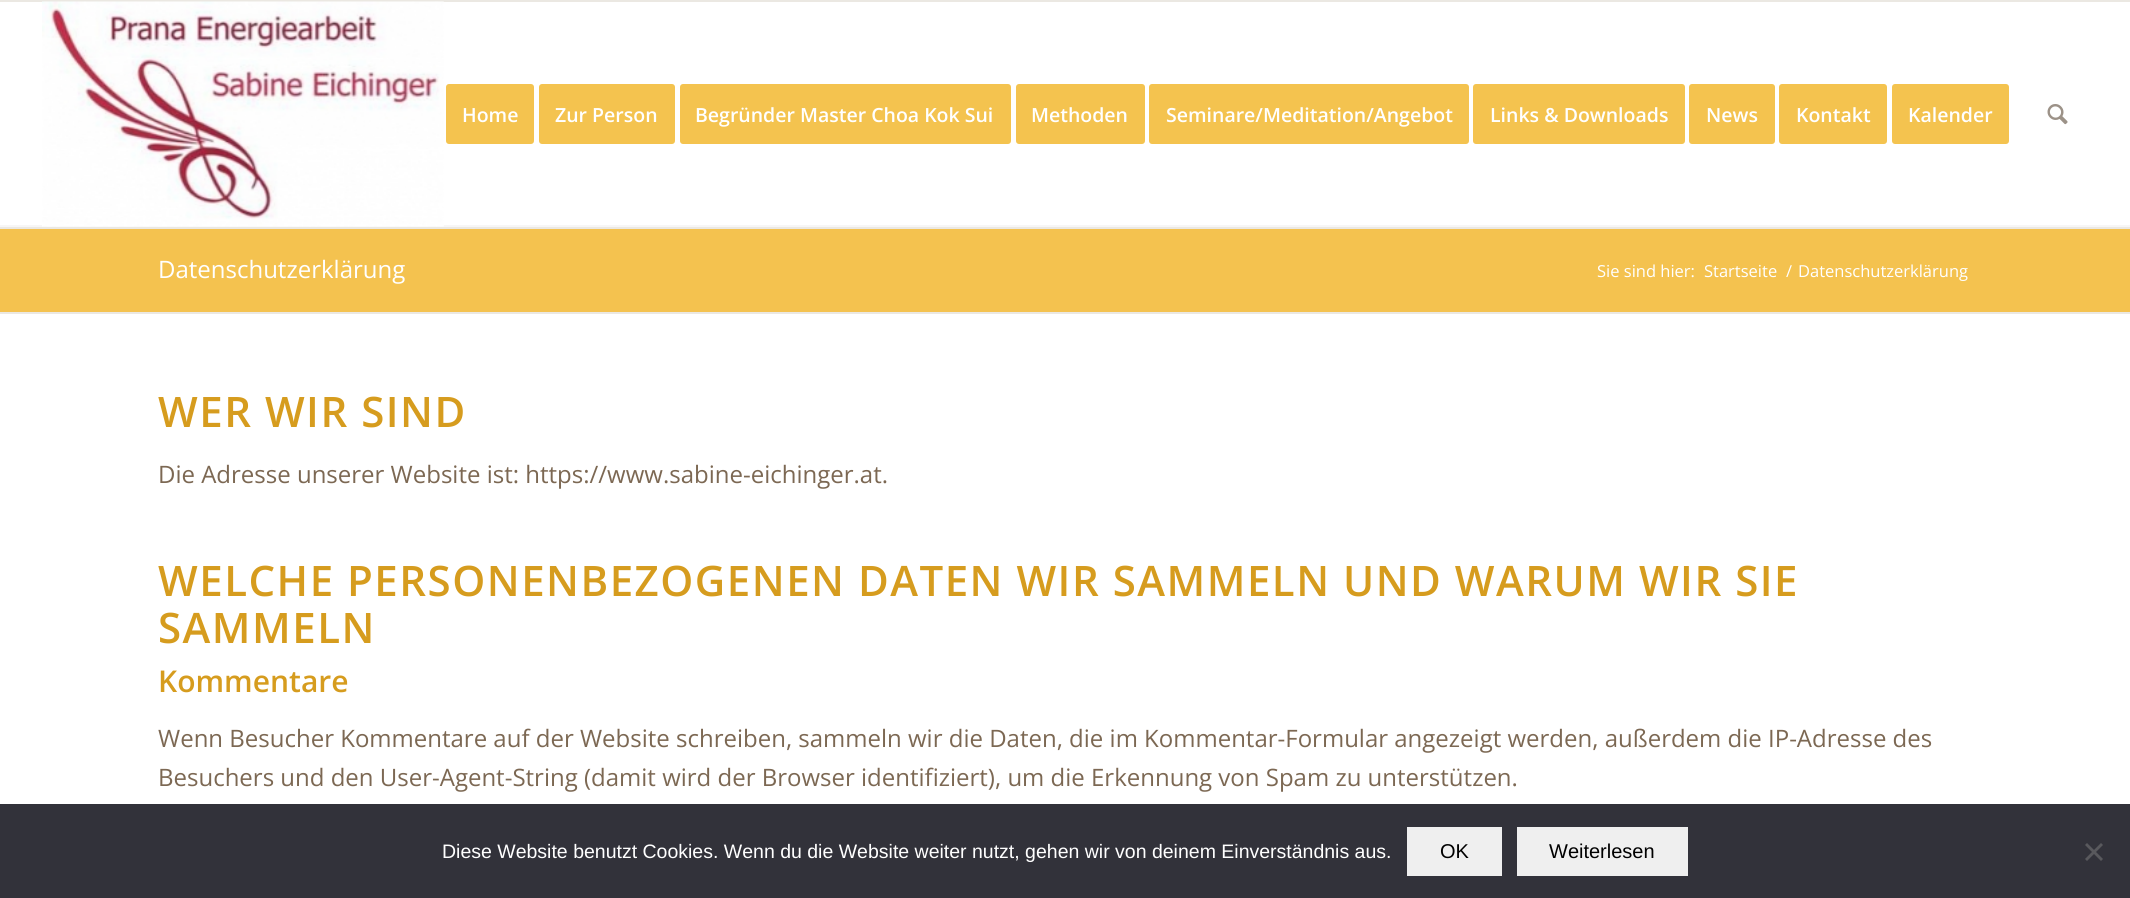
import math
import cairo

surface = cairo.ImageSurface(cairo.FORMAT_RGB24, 2130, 898)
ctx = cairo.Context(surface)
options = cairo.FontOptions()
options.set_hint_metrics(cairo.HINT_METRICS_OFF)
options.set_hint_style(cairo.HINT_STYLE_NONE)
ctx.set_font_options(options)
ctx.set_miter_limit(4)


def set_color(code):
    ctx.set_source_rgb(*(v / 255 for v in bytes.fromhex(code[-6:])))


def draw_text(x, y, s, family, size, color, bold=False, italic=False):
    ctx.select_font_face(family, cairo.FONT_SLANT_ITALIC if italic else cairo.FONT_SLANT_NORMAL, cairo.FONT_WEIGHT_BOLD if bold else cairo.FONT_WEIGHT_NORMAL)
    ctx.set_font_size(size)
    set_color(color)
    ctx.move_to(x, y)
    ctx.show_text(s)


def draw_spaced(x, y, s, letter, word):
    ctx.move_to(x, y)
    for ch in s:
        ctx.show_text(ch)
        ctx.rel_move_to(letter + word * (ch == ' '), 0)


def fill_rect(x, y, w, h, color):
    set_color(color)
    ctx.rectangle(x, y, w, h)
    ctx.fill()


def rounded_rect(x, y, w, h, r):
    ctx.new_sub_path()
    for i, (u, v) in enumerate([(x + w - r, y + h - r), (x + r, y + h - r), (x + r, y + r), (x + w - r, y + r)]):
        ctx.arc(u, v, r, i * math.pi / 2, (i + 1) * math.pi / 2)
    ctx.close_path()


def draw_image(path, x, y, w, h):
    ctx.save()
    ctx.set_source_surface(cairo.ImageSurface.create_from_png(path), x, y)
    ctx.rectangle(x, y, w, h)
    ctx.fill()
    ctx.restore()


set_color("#ffffff")
ctx.paint()
fill_rect(0, 0, 2130, 2, "#ebe8e2")
fill_rect(0, 227, 2130, 2, "#ebe8e2")
fill_rect(0, 225, 2130, 2, "#f7f6f6")
draw_image("assets/img1.png", 42, 1, 402, 226)
set_color("#f4c34f")
rounded_rect(447.5, 85.5, 85, 57, 1.5)
ctx.fill_preserve()
ctx.set_line_width(3)
ctx.stroke()
draw_text(462, 122, "Home", "Open Sans SemiBold", 19.5, "#ffffff")
set_color("#f4c34f")
rounded_rect(540.5, 85.5, 133, 57, 1.5)
ctx.fill_preserve()
ctx.stroke()
draw_text(555, 122, "Zur Person", "Open Sans SemiBold", 19.5, "#ffffff")
set_color("#f4c34f")
rounded_rect(681.5, 85.5, 328, 57, 1.5)
ctx.fill_preserve()
ctx.stroke()
draw_text(695, 122, "Begründer Master Choa Kok Sui", "Open Sans SemiBold", 19.5, "#ffffff")
set_color("#f4c34f")
rounded_rect(1017.5, 85.5, 126, 57, 1.5)
ctx.fill_preserve()
ctx.stroke()
draw_text(1031, 122, "Methoden", "Open Sans SemiBold", 19.5, "#ffffff")
set_color("#f4c34f")
rounded_rect(1150.5, 85.5, 317, 57, 1.5)
ctx.fill_preserve()
ctx.stroke()
draw_text(1166, 122, "Seminare/Meditation/Angebot", "Open Sans SemiBold", 19.5, "#ffffff")
set_color("#f4c34f")
rounded_rect(1474.5, 85.5, 209, 57, 1.5)
ctx.fill_preserve()
ctx.stroke()
draw_text(1490, 122, "Links & Downloads", "Open Sans SemiBold", 19.5, "#ffffff")
set_color("#f4c34f")
rounded_rect(1690.5, 85.5, 83, 57, 1.5)
ctx.fill_preserve()
ctx.stroke()
draw_text(1706, 122, "News", "Open Sans SemiBold", 19.5, "#ffffff")
set_color("#f4c34f")
rounded_rect(1780.5, 85.5, 105, 57, 1.5)
ctx.fill_preserve()
ctx.stroke()
draw_text(1796, 122, "Kontakt", "Open Sans SemiBold", 19.5, "#ffffff")
set_color("#f4c34f")
rounded_rect(1893.5, 85.5, 114, 57, 1.5)
ctx.fill_preserve()
ctx.stroke()
draw_text(1908, 122, "Kalender", "Open Sans SemiBold", 19.5, "#ffffff")
draw_image("assets/img2.png", 2047, 104, 21, 21)
fill_rect(0, 229, 2130, 83, "#f4c24f")
draw_text(158, 278, "Datenschutzerklärung", "Open Sans", 24, "#ffffff")
draw_text(1597, 277, "Sie sind hier:", "Open Sans", 16.5, "#ffffff")
draw_text(1704, 277, "Startseite", "Open Sans", 16.5, "#ffffff")
draw_text(1786, 277, "/", "Open Sans", 16.5, "#ffffff")
draw_text(1798, 277, "Datenschutzerklärung", "Open Sans", 16.5, "#ffffff")
fill_rect(0, 312, 2130, 2, "#ebe8e2")
ctx.select_font_face("Open Sans SemiBold")
ctx.set_font_size(42)
set_color("#d69c1e")
draw_spaced(158, 427, "WER WIR SIND", 1.5, 0)
draw_text(158, 483, "Die Adresse unserer Website ist: https://www.sabine-eichinger.at.", "Open Sans", 24, "#7c6853")
ctx.select_font_face("Open Sans SemiBold")
ctx.set_font_size(42)
set_color("#d69c1e")
draw_spaced(158, 596, "WELCHE PERSONENBEZOGENEN DATEN WIR SAMMELN UND WARUM WIR SIE", 1.5, 0)
draw_spaced(158, 643, "SAMMELN", 1.5, 0)
draw_text(158, 692, "Kommentare", "Open Sans SemiBold", 30, "#d69c1e")
draw_text(158, 747, "Wenn Besucher Kommentare auf der Website schreiben, sammeln wir die Daten, die im Kommentar-Formular angezeigt werden, außerdem die IP-Adresse des", "Open Sans", 24, "#7c6853")
draw_text(158, 786, "Besuchers und den User-Agent-String (damit wird der Browser identifiziert), um die Erkennung von Spam zu unterstützen.", "Open Sans", 24, "#7c6853")
fill_rect(0, 804, 2130, 94, "#32323a")
draw_text(442, 858, "Diese Website benutzt Cookies. Wenn du die Website weiter nutzt, gehen wir von deinem Einverständnis aus.", "Liberation Sans", 19.5, "#ffffff")
fill_rect(1407, 827, 95, 49, "#efefef")
draw_text(1440, 858, "OK", "Liberation Sans", 20, "#000000")
fill_rect(1517, 827, 171, 49, "#efefef")
draw_text(1549, 858, "Weiterlesen", "Liberation Sans", 20, "#000000")
set_color("#59595d")
ctx.new_path()
ctx.move_to(2101, 843)
ctx.line_to(2103, 845)
ctx.line_to(2087, 861)
ctx.line_to(2085, 859)
ctx.close_path()
ctx.fill()
ctx.new_path()
ctx.move_to(2085, 845)
ctx.line_to(2087, 843)
ctx.line_to(2103, 859)
ctx.line_to(2101, 861)
ctx.close_path()
ctx.fill()
surface.write_to_png("output.png")
